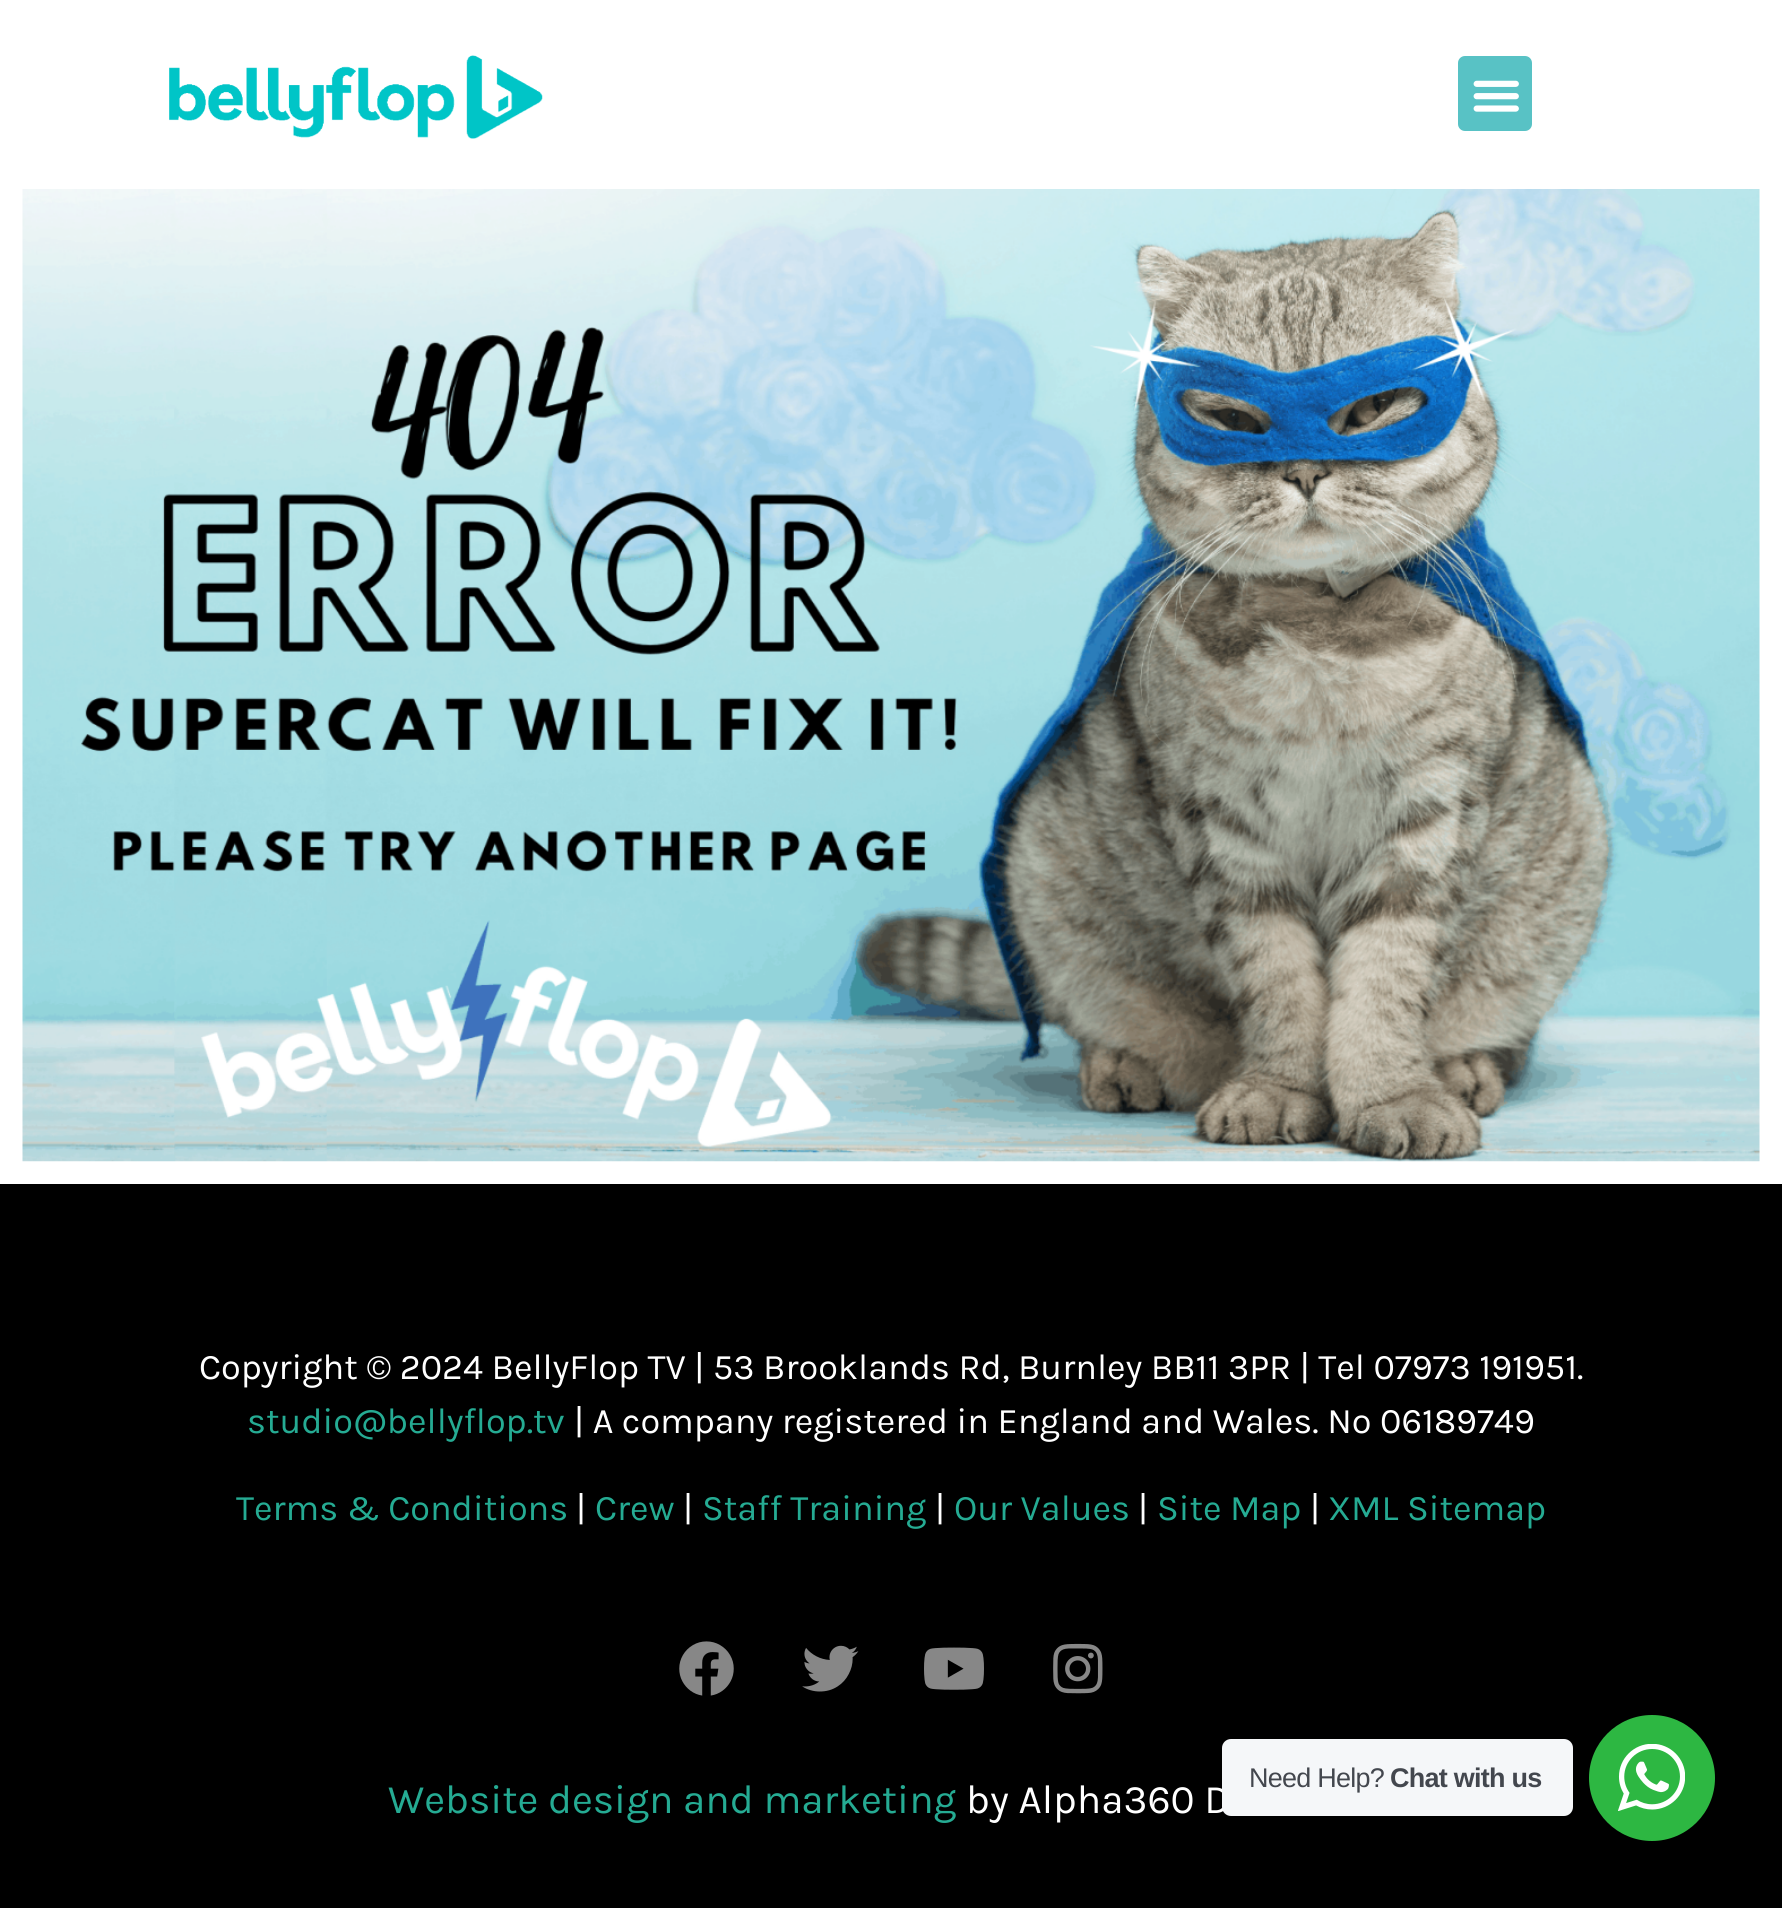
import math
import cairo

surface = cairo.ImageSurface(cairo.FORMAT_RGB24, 1782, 1908)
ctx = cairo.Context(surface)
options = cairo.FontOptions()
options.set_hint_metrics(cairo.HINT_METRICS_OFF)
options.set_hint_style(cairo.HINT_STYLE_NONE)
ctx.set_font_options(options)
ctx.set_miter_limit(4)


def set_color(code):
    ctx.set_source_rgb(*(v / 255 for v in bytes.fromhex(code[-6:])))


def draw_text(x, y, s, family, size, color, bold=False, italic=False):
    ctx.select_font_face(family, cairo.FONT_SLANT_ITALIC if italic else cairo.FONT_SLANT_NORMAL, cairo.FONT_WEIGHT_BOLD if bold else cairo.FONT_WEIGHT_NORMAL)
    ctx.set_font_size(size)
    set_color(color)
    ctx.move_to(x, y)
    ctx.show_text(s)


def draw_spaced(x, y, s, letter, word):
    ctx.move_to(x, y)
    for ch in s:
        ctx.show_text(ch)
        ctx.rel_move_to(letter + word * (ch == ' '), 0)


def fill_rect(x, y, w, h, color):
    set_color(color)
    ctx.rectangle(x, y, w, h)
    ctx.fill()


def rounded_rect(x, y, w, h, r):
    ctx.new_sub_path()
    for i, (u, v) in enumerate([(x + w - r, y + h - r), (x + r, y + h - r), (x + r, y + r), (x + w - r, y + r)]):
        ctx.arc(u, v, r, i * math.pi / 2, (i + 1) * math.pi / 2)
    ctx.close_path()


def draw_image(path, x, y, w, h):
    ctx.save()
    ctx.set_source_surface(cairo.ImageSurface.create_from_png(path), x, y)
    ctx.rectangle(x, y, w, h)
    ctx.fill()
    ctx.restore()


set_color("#ffffff")
ctx.paint()
draw_image("assets/img1.png", 169, 55, 374, 84)
set_color("#58c2c5")
rounded_rect(1458, 56, 74, 75, 7)
ctx.fill()
draw_image("assets/img2.png", 1473, 80, 46, 32)
draw_image("assets/img3.png", 22, 189, 1738, 973)
fill_rect(0, 1184, 1782, 724, "#000000")
draw_text(199, 1379, "Copyright © 2024 BellyFlop TV | 53 Brooklands Rd, Burnley BB11 3PR | Tel 07973 191951.", "Karla", 36, "#ffffff")
draw_text(247, 1433, "studio@bellyflop.tv", "Karla", 36, "#25ab93")
draw_text(574, 1433, "| A company registered in England and Wales. No 06189749", "Karla", 36, "#ffffff")
draw_text(236, 1520, "Terms & Conditions", "Karla", 36, "#25ab93")
draw_text(576, 1520, "|", "Karla", 36, "#ffffff")
draw_text(595, 1520, "Crew", "Karla", 36, "#25ab93")
draw_text(683, 1520, "|", "Karla", 36, "#ffffff")
draw_text(702, 1520, "Staff Training", "Karla", 36, "#25ab93")
draw_text(935, 1520, "|", "Karla", 36, "#ffffff")
draw_text(954, 1520, "Our Values", "Karla", 36, "#25ab93")
draw_text(1138, 1520, "|", "Karla", 36, "#ffffff")
draw_text(1157, 1520, "Site Map", "Karla", 36, "#25ab93")
draw_text(1310, 1520, "|", "Karla", 36, "#ffffff")
draw_text(1328, 1520, "XML Sitemap", "Karla", 36, "#25ab93")
draw_image("assets/img4.png", 679, 1641, 55, 55)
draw_image("assets/img5.png", 802, 1645, 57, 47)
draw_image("assets/img6.png", 924, 1647, 60, 43)
draw_image("assets/img7.png", 1053, 1643, 50, 51)
draw_text(388, 1813, "Website design and marketing", "Karla", 40.5, "#25ab93")
draw_text(966, 1813, "by Alpha360 D", "Karla", 40.5, "#ffffff")
set_color("#f5f7f9")
rounded_rect(1222, 1739, 351, 77, 9)
ctx.fill()
ctx.select_font_face("Liberation Sans")
ctx.set_font_size(27)
set_color("#43474e")
draw_spaced(1249, 1787, "Need Help?", -0.75, 0)
ctx.select_font_face("Liberation Sans", cairo.FONT_SLANT_NORMAL, cairo.FONT_WEIGHT_BOLD)
draw_spaced(1390, 1787, "Chat with us", -0.75, 0)
set_color("#2db742")
ctx.new_path()
ctx.arc(1652, 1778, 63, 0, 2 * math.pi)
ctx.fill()
draw_image("assets/img8.png", 1618, 1744, 67, 67)
surface.write_to_png("output.png")
